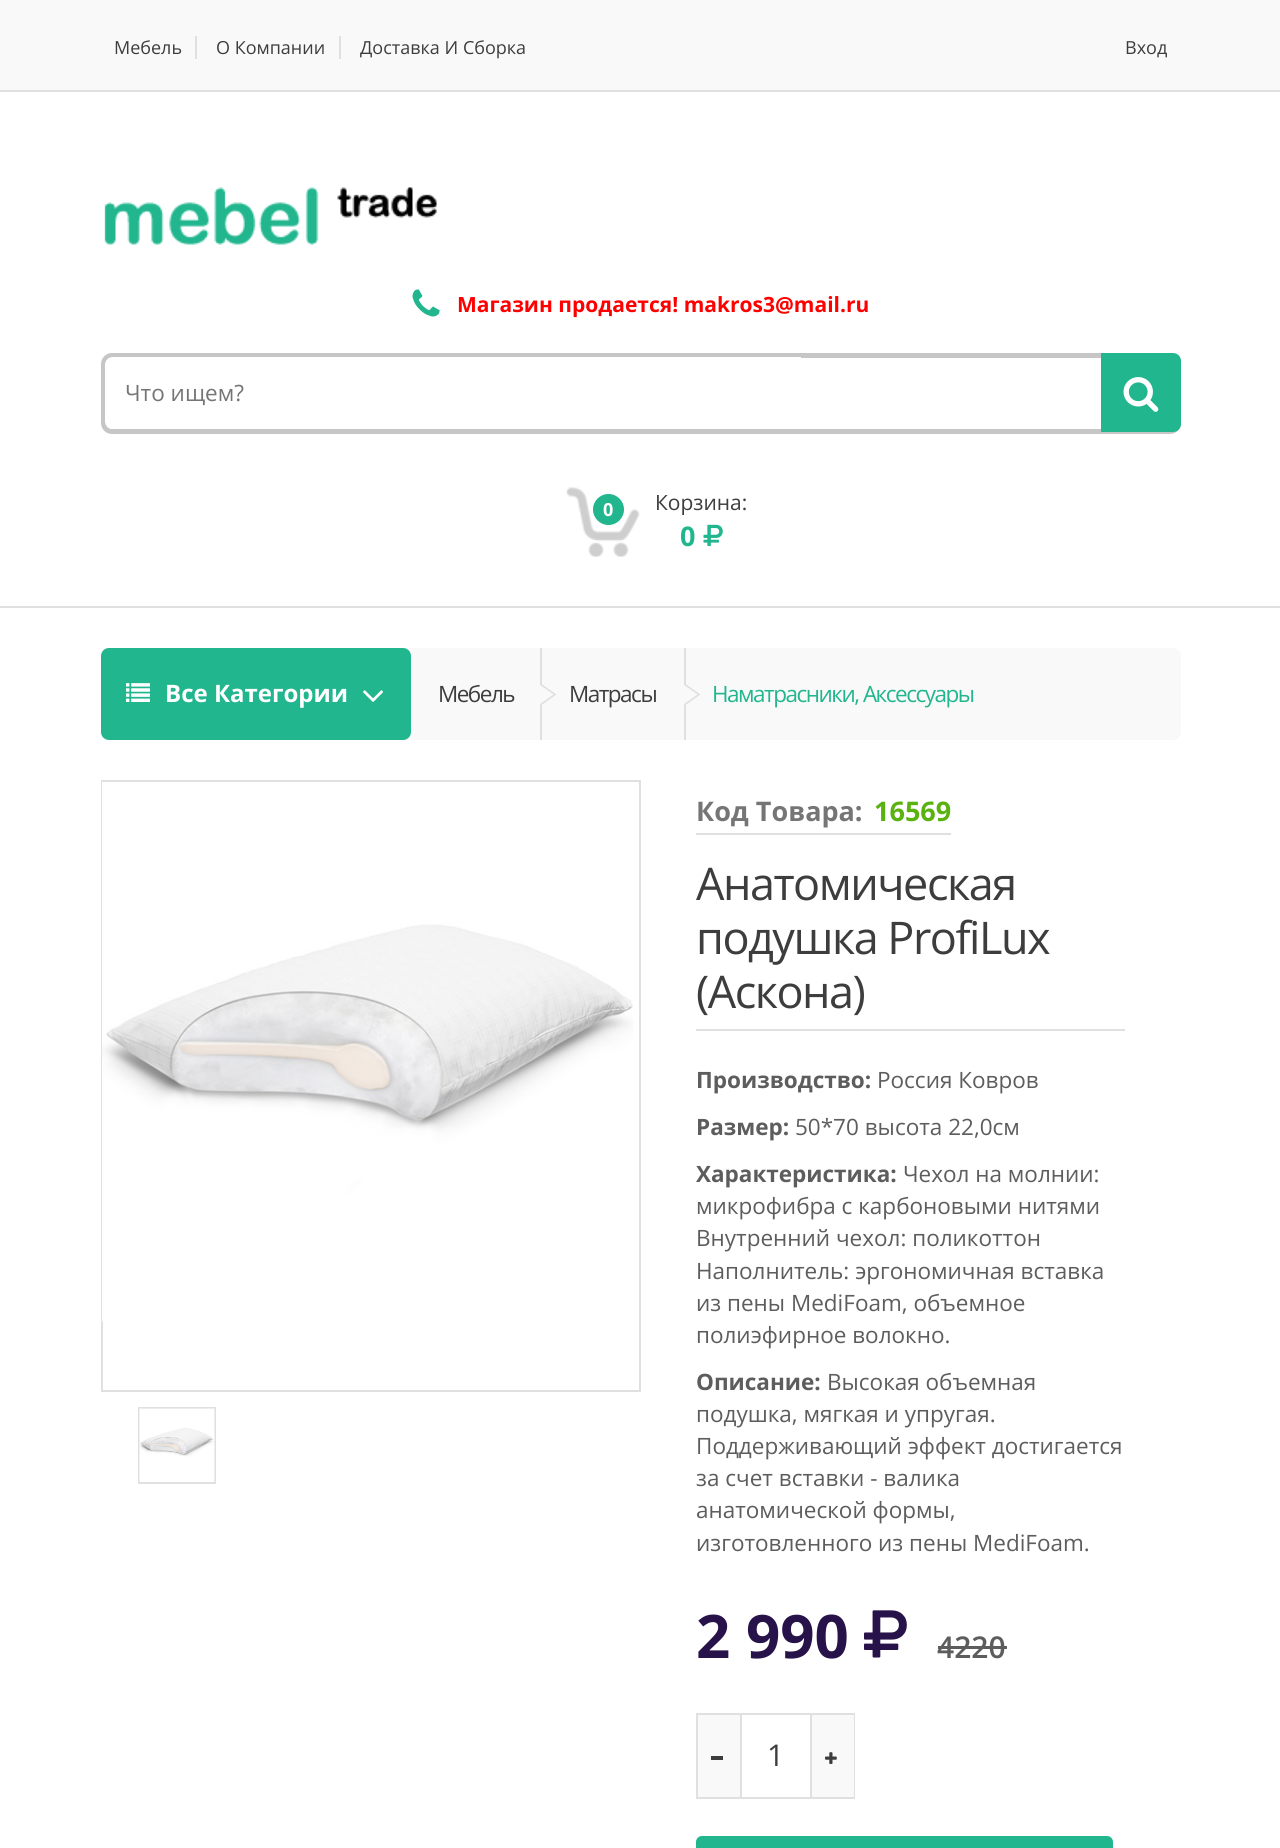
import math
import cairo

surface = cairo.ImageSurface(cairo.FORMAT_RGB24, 1280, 1848)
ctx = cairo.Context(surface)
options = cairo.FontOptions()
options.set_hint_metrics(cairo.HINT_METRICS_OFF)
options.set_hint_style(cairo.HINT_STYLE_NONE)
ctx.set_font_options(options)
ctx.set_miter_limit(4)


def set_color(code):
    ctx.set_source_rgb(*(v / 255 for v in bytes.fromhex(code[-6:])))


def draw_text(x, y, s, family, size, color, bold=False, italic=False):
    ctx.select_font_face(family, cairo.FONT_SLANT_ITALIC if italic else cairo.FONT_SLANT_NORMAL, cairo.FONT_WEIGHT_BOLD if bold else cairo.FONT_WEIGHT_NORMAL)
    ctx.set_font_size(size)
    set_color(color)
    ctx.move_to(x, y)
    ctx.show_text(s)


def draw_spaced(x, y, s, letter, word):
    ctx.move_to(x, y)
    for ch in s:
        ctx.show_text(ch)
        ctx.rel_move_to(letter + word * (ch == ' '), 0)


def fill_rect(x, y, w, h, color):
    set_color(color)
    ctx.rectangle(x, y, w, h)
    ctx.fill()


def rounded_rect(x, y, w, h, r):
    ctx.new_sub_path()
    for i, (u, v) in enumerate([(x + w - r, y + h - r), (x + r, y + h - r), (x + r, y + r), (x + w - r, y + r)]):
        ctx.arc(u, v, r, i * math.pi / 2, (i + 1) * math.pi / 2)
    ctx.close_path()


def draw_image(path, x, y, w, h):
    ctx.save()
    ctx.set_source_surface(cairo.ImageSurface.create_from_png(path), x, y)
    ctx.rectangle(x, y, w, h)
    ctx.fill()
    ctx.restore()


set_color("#ffffff")
ctx.paint()
fill_rect(0, 0, 1280, 90, "#f9f9f9")
fill_rect(0, 90, 1280, 2, "#e0e0e0")
fill_rect(195, 36, 2, 23, "#e0e0e0")
draw_text(114, 54, "Мебель", "Open Sans", 18, "#3d3d3d")
fill_rect(339, 36, 2, 23, "#e0e0e0")
draw_text(216, 54, "О Компании", "Open Sans", 18, "#3d3d3d")
draw_text(360, 54, "Доставка И Сборка", "Open Sans", 18, "#3d3d3d")
draw_text(1125, 54, "Вход", "Open Sans", 18, "#3d3d3d")
fill_rect(0, 606, 1280, 2, "#e0e0e0")
draw_image("assets/img1.png", 104, 187, 333, 58)
draw_image("assets/img2.png", 412, 289, 28, 28)
draw_text(457, 312, "Магазин продается! makros3@mail.ru", "Open Sans", 21, "#ff0000", bold=True)
rounded_rect(103.5, 355.5, 1075, 76, 8.5)
set_color("#c6c6c6")
ctx.set_line_width(5)
ctx.stroke()
set_color("#ffffff")
ctx.new_path()
ctx.move_to(113, 357)
ctx.line_to(801, 357)
ctx.line_to(801, 429)
ctx.line_to(113, 429)
ctx.curve_to(108.5, 429, 105, 425.5, 105, 421)
ctx.line_to(105, 365)
ctx.curve_to(105, 360.5, 108.5, 357, 113, 357)
ctx.close_path()
ctx.fill()
draw_text(125, 401, "Что ищем?", "Open Sans", 22.5, "#757575")
set_color("#21b68e")
ctx.new_path()
ctx.move_to(1101, 353)
ctx.line_to(1173, 353)
ctx.curve_to(1177.5, 353, 1181, 356.5, 1181, 361)
ctx.line_to(1181, 424)
ctx.curve_to(1181, 428.5, 1177.5, 432, 1173, 432)
ctx.line_to(1101, 432)
ctx.close_path()
ctx.fill()
draw_image("assets/img3.png", 1123, 377, 36, 35)
draw_image("assets/img4.png", 566, 487, 74, 70)
ctx.arc(608.5, 509.5, 15.5, 0, 2 * math.pi)
ctx.fill()
draw_text(603, 516, "0", "Open Sans", 18, "#ffffff", bold=True)
draw_text(655, 510, "Корзина:", "Open Sans", 21, "#3d3d3d")
draw_text(680, 546, "0", "Open Sans", 27, "#21b68e", bold=True)
draw_image("assets/img5.png", 703, 524, 20, 22)
set_color("#f9f9f9")
rounded_rect(101, 648, 1080, 92, 8)
ctx.fill()
set_color("#21b68e")
rounded_rect(101, 648, 310, 92, 8)
ctx.fill()
draw_image("assets/img6.png", 126, 683, 24, 19)
draw_text(165, 702, "Все Категории", "Open Sans", 24, "#ffffff", bold=True)
draw_image("assets/img7.png", 363, 690, 20, 12)
fill_rect(540, 648, 2, 92, "#e0e0e0")
ctx.select_font_face("Open Sans")
ctx.set_font_size(22.5)
set_color("#3d3d3d")
draw_spaced(438, 702, "Мебель", -1.5, 0)
set_color("#e0e0e0")
ctx.new_path()
ctx.move_to(541.5, 705)
ctx.line_to(541.5, 684)
ctx.line_to(556.5, 694.5)
ctx.close_path()
ctx.fill()
set_color("#f9f9f9")
ctx.new_path()
ctx.move_to(538.5, 705)
ctx.line_to(538.5, 684)
ctx.line_to(553.5, 694.5)
ctx.close_path()
ctx.fill()
fill_rect(684, 648, 2, 92, "#e0e0e0")
ctx.new_path()
ctx.move_to(685.5, 705)
ctx.line_to(685.5, 684)
ctx.line_to(700.5, 694.5)
ctx.close_path()
ctx.fill()
set_color("#f9f9f9")
ctx.new_path()
ctx.move_to(682.5, 705)
ctx.line_to(682.5, 684)
ctx.line_to(697.5, 694.5)
ctx.close_path()
ctx.fill()
set_color("#3d3d3d")
draw_spaced(569, 702, "Матрасы", -1.5, 0)
set_color("#21b68e")
draw_spaced(712, 702, "Наматрасники, Аксессуары", -1.5, 0)
ctx.rectangle(102, 781, 538, 610)
set_color("#e0e0e0")
ctx.set_line_width(2)
ctx.stroke()
draw_image("assets/img8.png", 102, 782, 532, 540)
ctx.rectangle(139, 1408, 76, 75)
ctx.stroke()
draw_image("assets/img9.png", 139, 1408, 76, 74)
fill_rect(696, 833, 255, 2, "#e0e0e0")
draw_text(696, 821, "Код Товара:", "Open Sans", 27, "#757575", bold=True)
draw_text(874, 821, "16569", "Open Sans", 27, "#59b210", bold=True)
ctx.select_font_face("Open Sans")
ctx.set_font_size(45)
set_color("#3d3d3d")
draw_spaced(696, 900, "Анатомическая", -1.5, 0)
draw_spaced(696, 954, "подушка ProfiLux", -1.5, 0)
draw_spaced(696, 1008, "(Аскона)", -1.5, 0)
fill_rect(696, 1029, 429, 2, "#e0e0e0")
draw_text(696, 1088, "Производство:", "Open Sans", 22.5, "#5d5d5d", bold=True)
draw_text(877, 1088, "Россия Ковров", "Open Sans", 22.5, "#5d5d5d")
draw_text(696, 1135, "Размер:", "Open Sans", 22.5, "#5d5d5d", bold=True)
draw_text(795, 1135, "50*70 высота 22,0см", "Open Sans", 22.5, "#5d5d5d")
draw_text(696, 1182, "Характеристика:", "Open Sans", 22.5, "#5d5d5d", bold=True)
draw_text(903, 1182, "Чехол на молнии:", "Open Sans", 22.5, "#5d5d5d")
draw_text(696, 1214, "микрофибра с карбоновыми нитями", "Open Sans", 22.5, "#5d5d5d")
draw_text(696, 1246, "Внутренний чехол: поликоттон", "Open Sans", 22.5, "#5d5d5d")
draw_text(696, 1279, "Наполнитель: эргономичная вставка", "Open Sans", 22.5, "#5d5d5d")
draw_text(696, 1311, "из пены MediFoam, объемное", "Open Sans", 22.5, "#5d5d5d")
draw_text(696, 1343, "полиэфирное волокно.", "Open Sans", 22.5, "#5d5d5d")
draw_text(696, 1390, "Описание:", "Open Sans", 22.5, "#5d5d5d", bold=True)
draw_text(827, 1390, "Высокая объемная", "Open Sans", 22.5, "#5d5d5d")
draw_text(696, 1422, "подушка, мягкая и упругая.", "Open Sans", 22.5, "#5d5d5d")
draw_text(696, 1454, "Поддерживающий эффект достигается", "Open Sans", 22.5, "#5d5d5d")
draw_text(696, 1486, "за счет вставки - валика", "Open Sans", 22.5, "#5d5d5d")
draw_text(696, 1518, "анатомической формы,", "Open Sans", 22.5, "#5d5d5d")
draw_text(696, 1551, "изготовленного из пены MediFoam.", "Open Sans", 22.5, "#5d5d5d")
draw_text(696, 1658, "2 990", "Open Sans", 60, "#28124a", bold=True)
draw_image("assets/img10.png", 864, 1610, 43, 48)
draw_text(937, 1658, "4220", "Open Sans SemiBold", 30, "#5d5d5d")
fill_rect(938, 1646, 69, 3, "#5d5d5d")
ctx.rectangle(697, 1714, 157, 84)
set_color("#e0e0e0")
ctx.stroke()
fill_rect(698, 1715, 42, 82, "#f9f9f9")
fill_rect(740, 1715, 2, 82, "#e0e0e0")
fill_rect(711, 1756, 12, 4, "#3d3d3d")
draw_text(767, 1766, "1", "Open Sans", 30, "#3d3d3d")
fill_rect(812, 1715, 42, 82, "#f9f9f9")
fill_rect(810, 1715, 2, 82, "#e0e0e0")
draw_image("assets/img11.png", 825, 1752, 12, 12)
set_color("#21b68e")
rounded_rect(696, 1836, 417, 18, 6)
ctx.fill()
surface.write_to_png("output.png")
